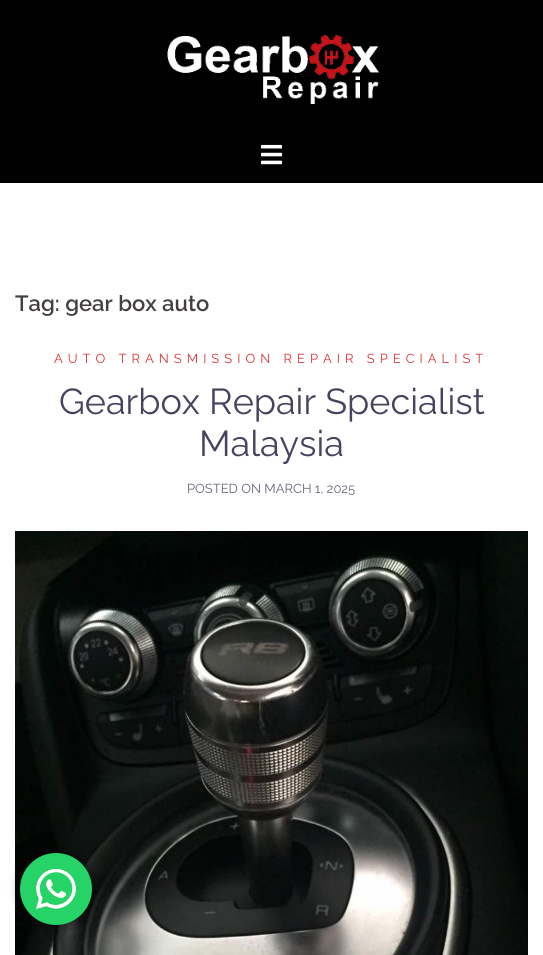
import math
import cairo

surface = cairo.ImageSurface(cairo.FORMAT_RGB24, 543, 955)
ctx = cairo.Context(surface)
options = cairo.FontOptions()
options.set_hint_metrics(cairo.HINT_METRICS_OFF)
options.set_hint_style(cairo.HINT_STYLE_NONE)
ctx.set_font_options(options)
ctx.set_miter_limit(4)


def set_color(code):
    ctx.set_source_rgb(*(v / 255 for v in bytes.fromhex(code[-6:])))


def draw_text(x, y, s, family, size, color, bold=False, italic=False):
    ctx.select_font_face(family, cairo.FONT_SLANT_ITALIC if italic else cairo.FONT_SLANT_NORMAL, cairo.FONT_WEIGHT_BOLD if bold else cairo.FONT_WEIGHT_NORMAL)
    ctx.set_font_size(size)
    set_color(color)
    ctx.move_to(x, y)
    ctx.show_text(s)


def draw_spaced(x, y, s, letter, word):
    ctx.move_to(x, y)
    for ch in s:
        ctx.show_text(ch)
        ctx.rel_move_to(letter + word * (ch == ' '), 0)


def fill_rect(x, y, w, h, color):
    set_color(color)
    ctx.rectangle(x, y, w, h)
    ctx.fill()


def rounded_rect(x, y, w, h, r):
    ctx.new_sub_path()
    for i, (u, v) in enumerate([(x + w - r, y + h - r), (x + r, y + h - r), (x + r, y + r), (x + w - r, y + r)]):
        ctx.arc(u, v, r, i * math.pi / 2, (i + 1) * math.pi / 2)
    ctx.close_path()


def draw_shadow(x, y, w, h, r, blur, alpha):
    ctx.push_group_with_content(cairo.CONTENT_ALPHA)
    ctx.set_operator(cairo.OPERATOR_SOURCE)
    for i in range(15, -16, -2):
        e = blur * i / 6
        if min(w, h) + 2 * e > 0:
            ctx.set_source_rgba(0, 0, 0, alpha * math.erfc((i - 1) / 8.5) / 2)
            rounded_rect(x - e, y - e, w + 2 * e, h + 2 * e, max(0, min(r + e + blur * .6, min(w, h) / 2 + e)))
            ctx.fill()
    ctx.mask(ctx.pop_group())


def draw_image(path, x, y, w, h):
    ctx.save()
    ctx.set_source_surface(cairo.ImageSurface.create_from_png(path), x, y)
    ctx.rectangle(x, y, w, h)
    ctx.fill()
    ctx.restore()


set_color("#ffffff")
ctx.paint()
fill_rect(0, 0, 543, 183, "#000000")
draw_image("assets/img1.png", 167, 35, 213, 69)
draw_image("assets/img2.png", 261, 144, 21, 21)
draw_text(15, 311, "Tag: gear box auto", "Raleway Thin", 22, "#443f3f")
ctx.select_font_face("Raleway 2 Thin")
ctx.set_font_size(13)
set_color("#dd3333")
draw_spaced(54, 363, "AUTO TRANSMISSION REPAIR SPECIALIST", 5, 0)
draw_text(59, 414, "Gearbox Repair Specialist", "Raleway 2 Thin", 36, "#47425d")
draw_text(199, 456, "Malaysia", "Raleway 2 Thin", 36, "#47425d")
draw_text(187, 493, "POSTED ON MARCH 1, 2025", "Raleway 2 Thin", 13, "#68647a")
draw_image("assets/img3.png", 15, 531, 513, 424)
set_color("#000000")
draw_shadow(20, 853, 72, 72, 36, 5.5, 0.5)
set_color("#25d366")
ctx.arc(56, 889, 36, 0, 2 * math.pi)
ctx.fill()
draw_image("assets/img4.png", 36, 869, 40, 40)
surface.write_to_png("output.png")
